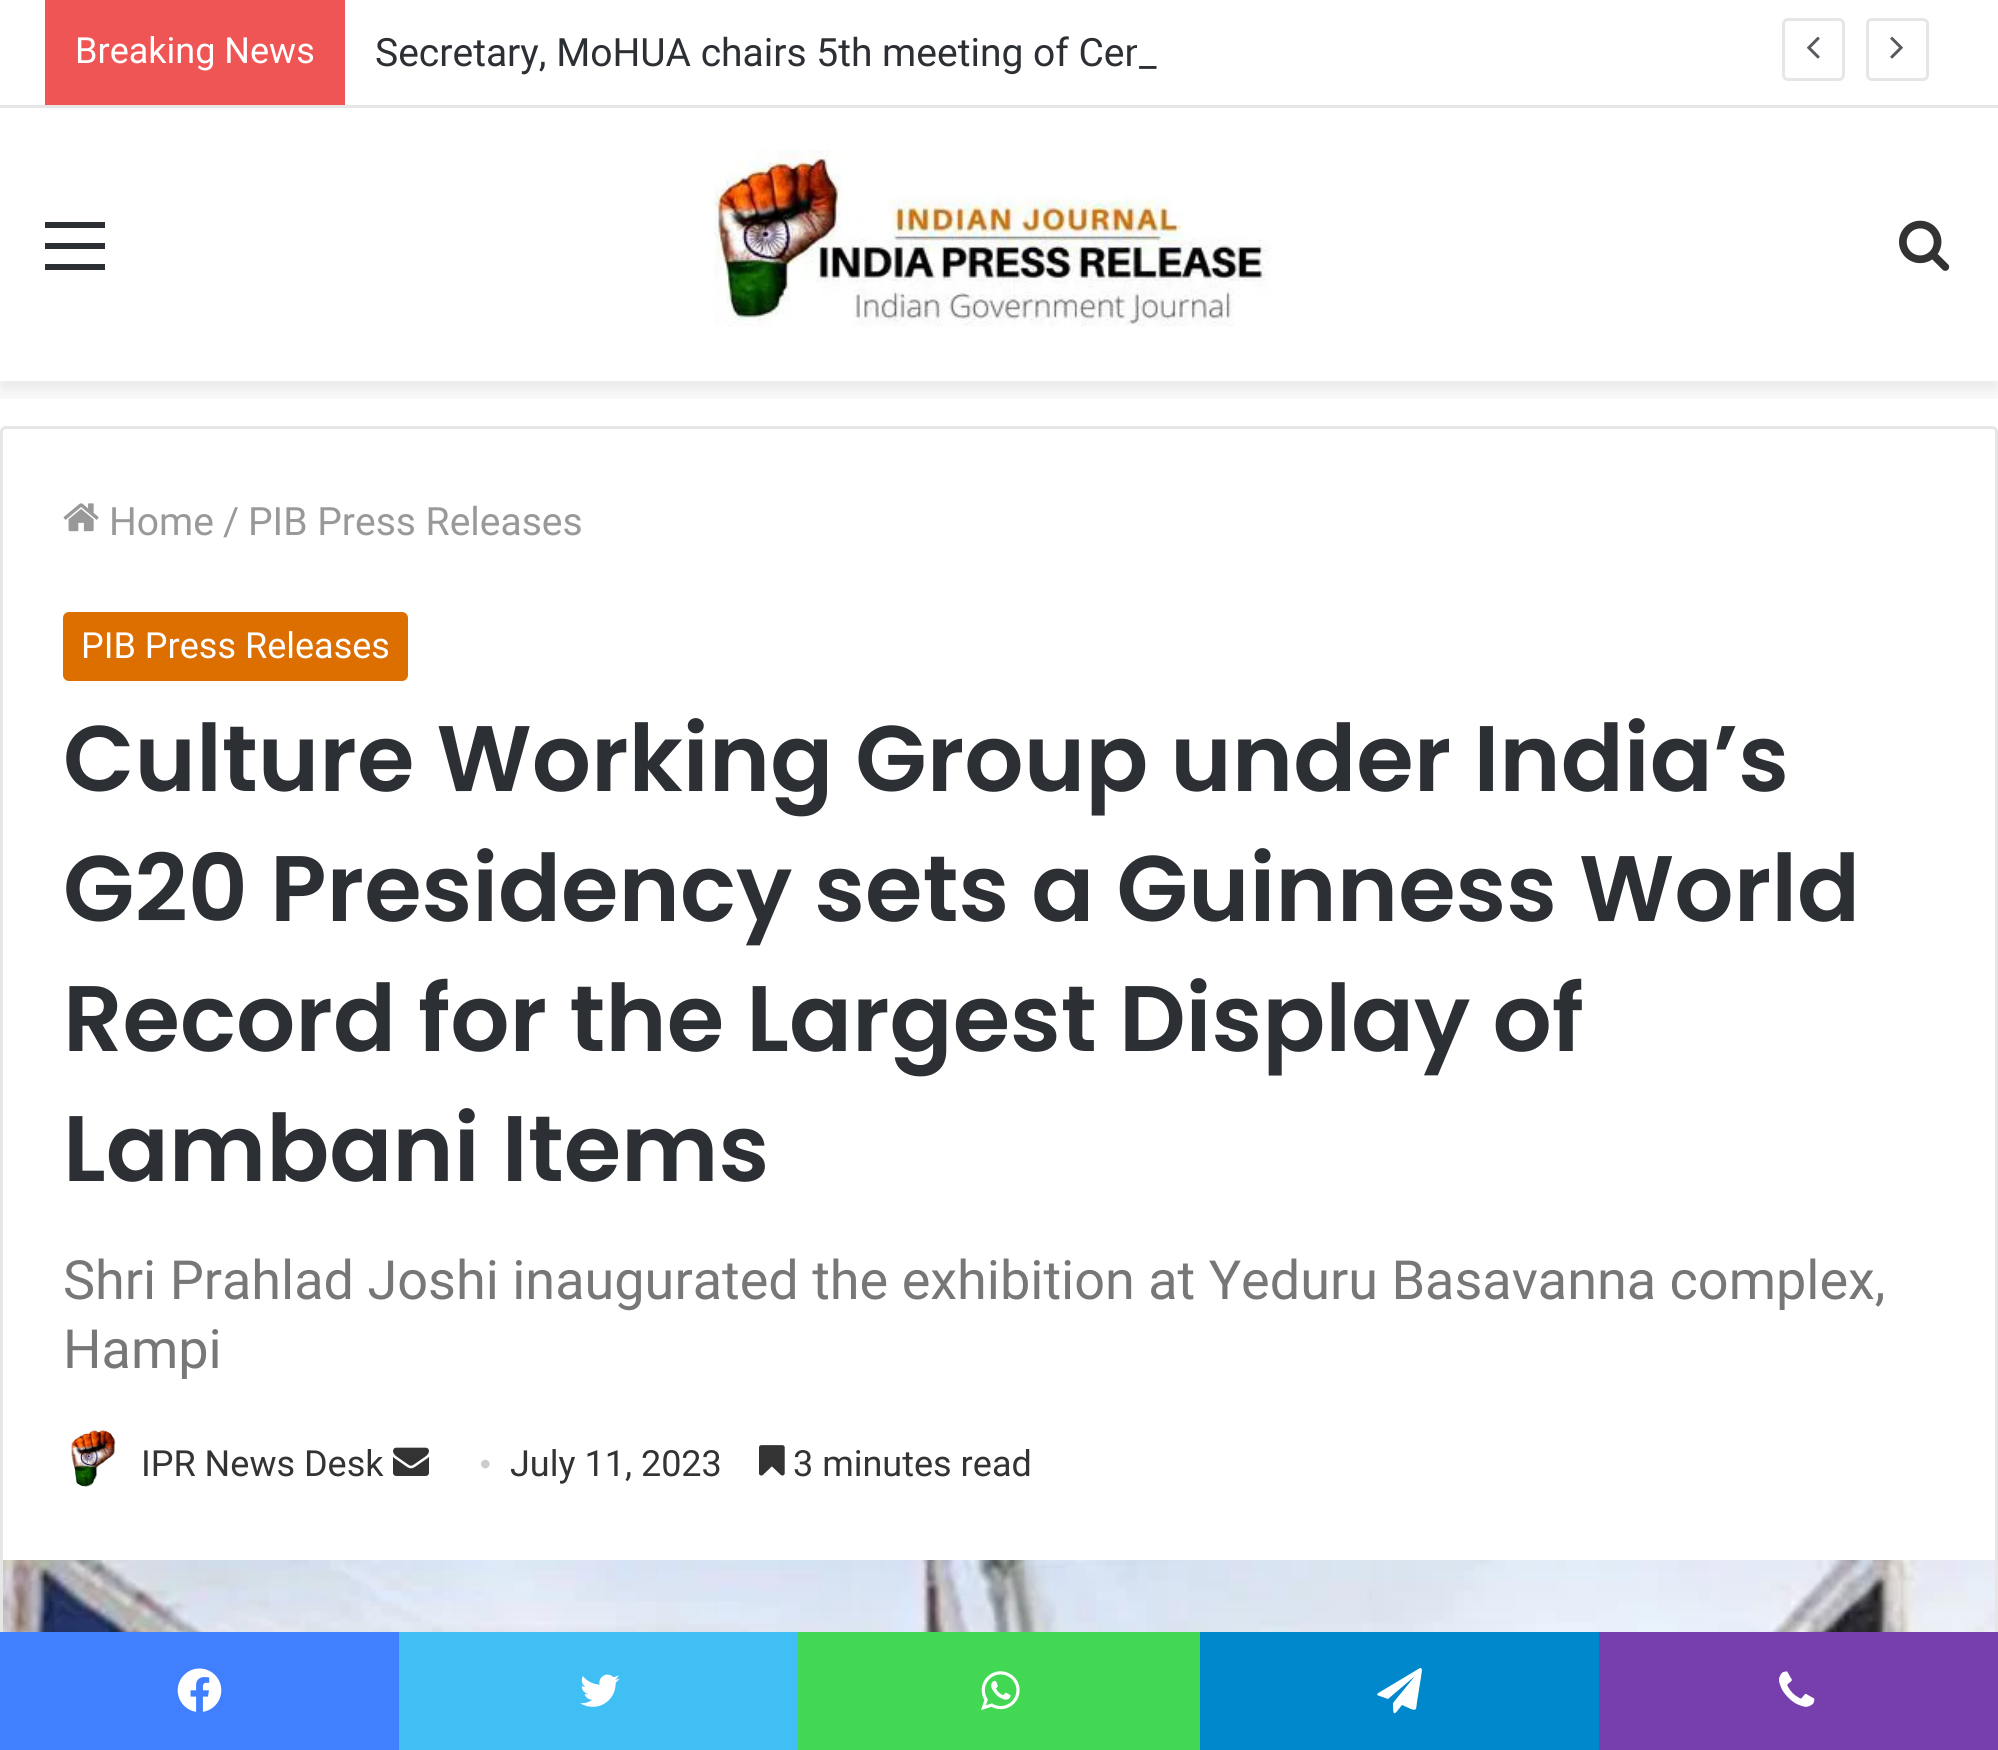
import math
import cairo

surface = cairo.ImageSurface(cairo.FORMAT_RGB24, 1998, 1750)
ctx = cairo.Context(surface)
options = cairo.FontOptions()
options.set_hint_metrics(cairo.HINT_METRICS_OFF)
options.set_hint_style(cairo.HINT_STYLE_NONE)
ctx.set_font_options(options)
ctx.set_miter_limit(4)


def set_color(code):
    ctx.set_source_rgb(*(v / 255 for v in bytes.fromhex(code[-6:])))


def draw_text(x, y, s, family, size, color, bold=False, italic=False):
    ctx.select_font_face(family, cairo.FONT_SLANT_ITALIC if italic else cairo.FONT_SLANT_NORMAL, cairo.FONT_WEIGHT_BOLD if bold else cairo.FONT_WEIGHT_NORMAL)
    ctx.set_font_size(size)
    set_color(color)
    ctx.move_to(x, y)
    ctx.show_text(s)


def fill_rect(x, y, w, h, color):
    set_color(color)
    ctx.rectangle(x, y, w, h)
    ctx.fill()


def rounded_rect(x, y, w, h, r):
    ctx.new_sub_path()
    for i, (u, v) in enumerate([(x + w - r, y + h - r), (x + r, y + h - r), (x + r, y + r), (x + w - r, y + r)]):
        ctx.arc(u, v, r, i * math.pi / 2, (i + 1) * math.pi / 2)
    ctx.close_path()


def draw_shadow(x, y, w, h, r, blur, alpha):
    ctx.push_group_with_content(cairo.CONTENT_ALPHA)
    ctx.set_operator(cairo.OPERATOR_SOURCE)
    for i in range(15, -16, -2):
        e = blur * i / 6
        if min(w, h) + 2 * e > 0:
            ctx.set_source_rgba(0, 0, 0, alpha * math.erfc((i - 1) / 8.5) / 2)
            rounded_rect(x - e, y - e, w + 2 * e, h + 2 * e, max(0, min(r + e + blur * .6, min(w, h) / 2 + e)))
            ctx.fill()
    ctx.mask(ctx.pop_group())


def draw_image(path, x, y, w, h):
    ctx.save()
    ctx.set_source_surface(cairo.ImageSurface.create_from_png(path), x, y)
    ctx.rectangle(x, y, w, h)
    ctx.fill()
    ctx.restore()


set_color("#ffffff")
ctx.paint()
ctx.save()
ctx.rectangle(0, 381, 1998, 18)
ctx.clip()
set_color("#000000")
draw_shadow(0, 117, 1998, 273, 0, 10.5, 0.1)
ctx.restore()
fill_rect(11, 104, 1976, 1, "#ffffff")
fill_rect(0, 105, 1998, 3, "#e6e6e6")
fill_rect(45, 0, 300, 105, "#f05555")
draw_text(75, 63, "Breaking News", "Roboto", 36, "#ffffff")
draw_text(375, 66, "Secretary, MoHUA chairs 5th meeting of Cen", "Roboto", 39, "#2c2f34")
fill_rect(1137, 45, 7, 21, "#ffffff")
draw_text(1139, 66, "_", "Roboto", 39, "#2c2f34")
rounded_rect(1783.5, 19.5, 60, 60, 4.5)
set_color("#e6e6e6")
ctx.set_line_width(3)
ctx.stroke()
draw_image("assets/img1.png", 1807, 36, 13, 23)
rounded_rect(1867.5, 19.5, 60, 60, 4.5)
ctx.stroke()
draw_image("assets/img2.png", 1890, 36, 13, 23)
fill_rect(45, 243, 60, 6, "#2c2f34")
fill_rect(45, 222, 60, 6, "#2c2f34")
fill_rect(45, 264, 60, 6, "#2c2f34")
draw_image("assets/img3.png", 714, 150, 557, 177)
draw_image("assets/img4.png", 1899, 220, 51, 51)
rounded_rect(1.5, 427.5, 1995, 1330, 4.5)
set_color("#e6e6e6")
ctx.stroke()
draw_image("assets/img5.png", 63, 503, 36, 29)
draw_text(109, 535, "Home", "Roboto", 39, "#999999")
draw_text(223, 535, "/", "Roboto", 39, "#999999")
draw_text(248, 535, "PIB Press Releases", "Roboto", 39, "#999999")
set_color("#dd6e00")
rounded_rect(63, 612, 345, 69, 6)
ctx.fill()
draw_text(81, 658, "PIB Press Releases", "Roboto", 36, "#ffffff")
draw_text(63, 791, "Culture Working Group under India’s", "Poppins SemiBold", 93, "#2c2f34")
draw_text(63, 921, "G20 Presidency sets a Guinness World", "Poppins SemiBold", 93, "#2c2f34")
draw_text(63, 1051, "Record for the Largest Display of", "Poppins SemiBold", 93, "#2c2f34")
draw_text(63, 1181, "Lambani Items", "Poppins SemiBold", 93, "#2c2f34")
draw_text(63, 1299, "Shri Prahlad Joshi inaugurated the exhibition at Yeduru Basavanna complex,", "Roboto", 54, "#777777")
draw_text(63, 1368, "Hampi", "Roboto", 54, "#777777")
draw_image("assets/img6.png", 71, 1430, 45, 57)
draw_text(141, 1476, "IPR News Desk", "Roboto", 36, "#333333")
draw_image("assets/img7.png", 393, 1447, 36, 29)
draw_text(479, 1476, "•", "Liberation Serif", 36, "#cccccc")
draw_text(510, 1476, "July 11, 2023", "Roboto", 36, "#333333")
draw_image("assets/img8.png", 759, 1445, 26, 31)
draw_text(793, 1476, "3 minutes read", "Roboto", 36, "#333333")
draw_image("assets/img9.png", 3, 1560, 1992, 72)
fill_rect(0, 1632, 399, 118, "#4080ff")
draw_image("assets/img10.png", 177, 1668, 45, 44)
fill_rect(399, 1632, 399, 118, "#40bff5")
draw_image("assets/img11.png", 580, 1674, 40, 33)
fill_rect(798, 1632, 402, 118, "#43d854")
draw_image("assets/img12.png", 981, 1671, 39, 40)
fill_rect(1200, 1632, 399, 118, "#0088cc")
set_color("#ffffff")
ctx.new_path()
ctx.move_to(1421, 1668)
ctx.curve_to(1423, 1670, 1421, 1674, 1421, 1677)
ctx.line_to(1417, 1702)
ctx.curve_to(1416, 1709, 1417, 1711, 1411, 1709)
ctx.line_to(1402, 1705)
ctx.curve_to(1394, 1715, 1393, 1718, 1393, 1703)
ctx.line_to(1415, 1676)
ctx.line_to(1388, 1699)
ctx.curve_to(1375, 1694, 1373, 1696, 1385, 1689)
ctx.line_to(1420, 1668)
ctx.close_path()
ctx.fill()
fill_rect(1599, 1632, 399, 118, "#773ead")
draw_image("assets/img13.png", 1779, 1671, 36, 36)
surface.write_to_png("output.png")
